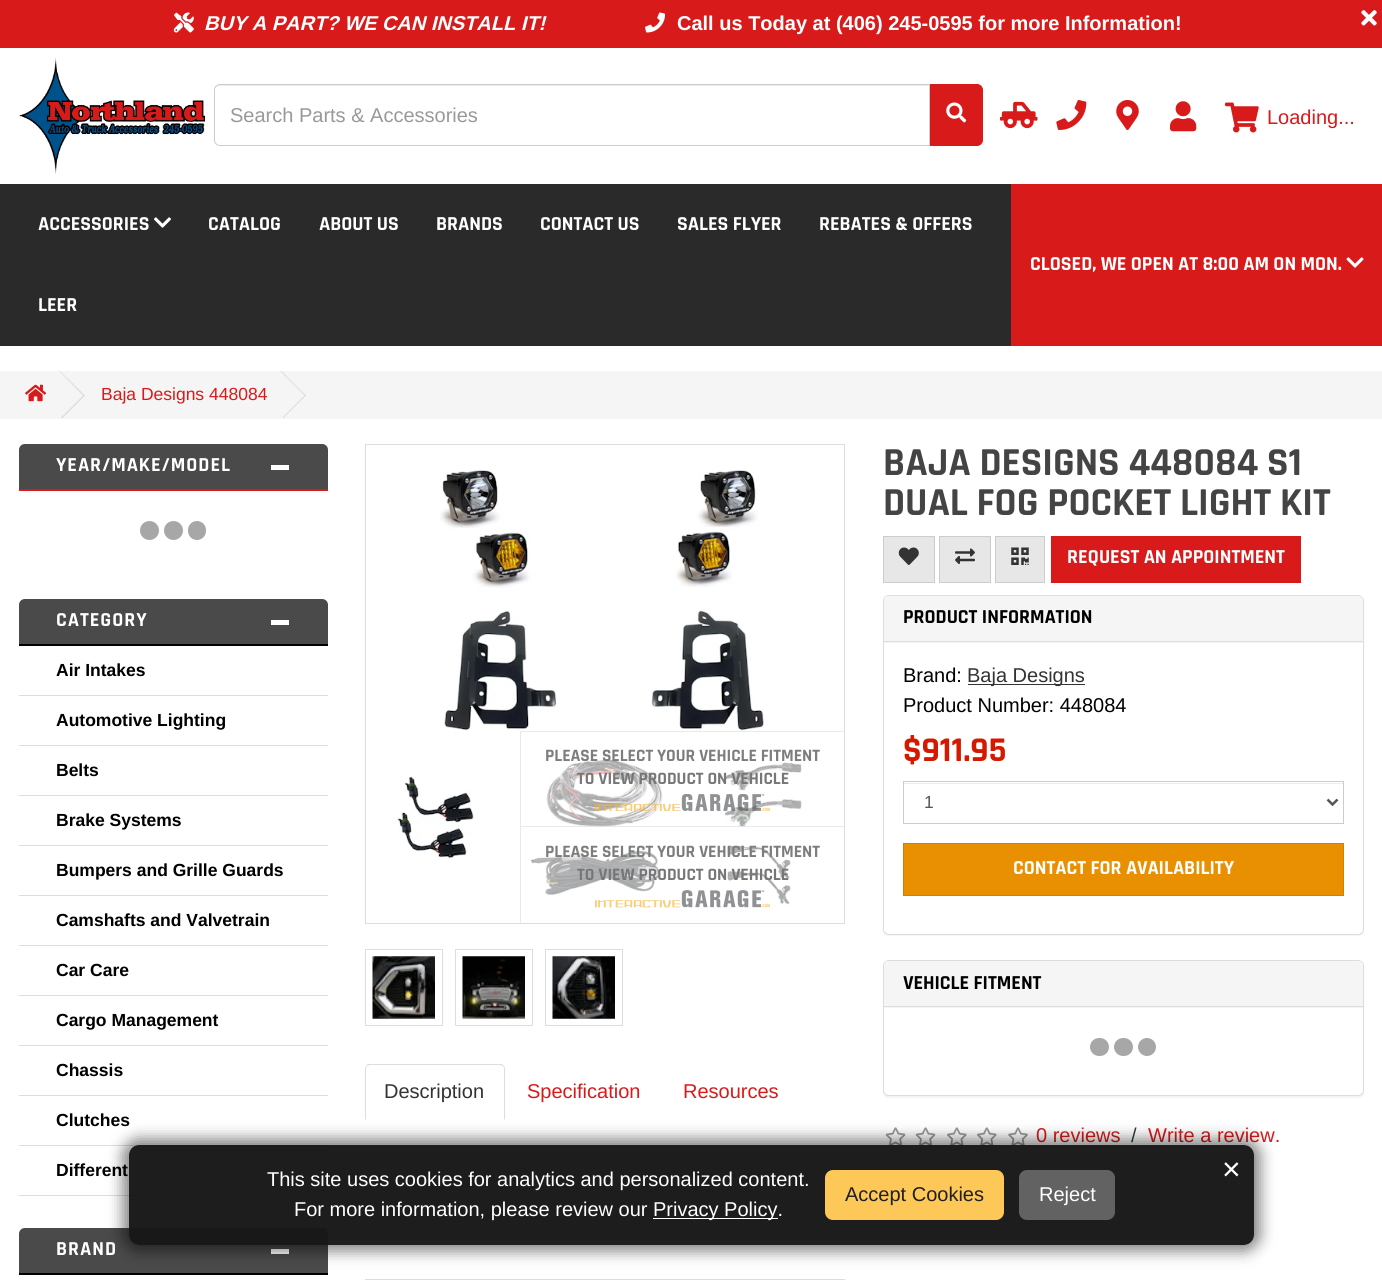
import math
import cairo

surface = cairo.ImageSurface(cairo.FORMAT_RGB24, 1382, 1285)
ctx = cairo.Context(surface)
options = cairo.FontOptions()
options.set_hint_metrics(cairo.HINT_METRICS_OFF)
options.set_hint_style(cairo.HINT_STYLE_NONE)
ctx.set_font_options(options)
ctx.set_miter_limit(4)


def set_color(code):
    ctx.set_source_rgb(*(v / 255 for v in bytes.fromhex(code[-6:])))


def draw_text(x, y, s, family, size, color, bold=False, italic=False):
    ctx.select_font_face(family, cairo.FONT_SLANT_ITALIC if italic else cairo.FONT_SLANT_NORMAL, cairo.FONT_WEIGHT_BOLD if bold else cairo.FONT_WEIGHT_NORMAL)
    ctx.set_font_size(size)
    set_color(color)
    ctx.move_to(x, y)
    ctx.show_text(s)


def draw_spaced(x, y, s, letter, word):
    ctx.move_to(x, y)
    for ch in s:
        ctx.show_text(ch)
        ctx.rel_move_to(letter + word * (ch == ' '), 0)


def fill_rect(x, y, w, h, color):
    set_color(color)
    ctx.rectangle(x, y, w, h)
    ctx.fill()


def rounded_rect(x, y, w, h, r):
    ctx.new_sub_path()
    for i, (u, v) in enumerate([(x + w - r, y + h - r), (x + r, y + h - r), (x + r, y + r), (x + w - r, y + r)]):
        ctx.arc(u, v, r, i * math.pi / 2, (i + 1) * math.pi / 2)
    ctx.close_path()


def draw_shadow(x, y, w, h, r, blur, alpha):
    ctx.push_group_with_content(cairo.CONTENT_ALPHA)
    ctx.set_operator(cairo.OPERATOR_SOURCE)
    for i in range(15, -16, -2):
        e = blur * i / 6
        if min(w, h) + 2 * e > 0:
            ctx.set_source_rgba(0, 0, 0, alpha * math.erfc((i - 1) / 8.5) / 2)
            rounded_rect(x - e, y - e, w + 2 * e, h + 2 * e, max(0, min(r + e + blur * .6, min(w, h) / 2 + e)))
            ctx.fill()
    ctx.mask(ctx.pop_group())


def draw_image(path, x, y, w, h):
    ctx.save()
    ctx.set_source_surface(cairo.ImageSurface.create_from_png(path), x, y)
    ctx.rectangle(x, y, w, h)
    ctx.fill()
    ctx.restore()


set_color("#ffffff")
ctx.paint()
fill_rect(0, 0, 1382, 48, "#d81a1a")
draw_image("assets/img1.png", 173, 12, 21, 21)
draw_text(204, 30, "BUY A PART? WE CAN INSTALL IT!", "Arimo", 20, "#ffffff", bold=True, italic=True)
draw_image("assets/img2.png", 645, 12, 20, 21)
draw_text(677, 30, "Call us Today at (406) 245-0595 for more Information!", "Arimo", 20, "#ffffff", bold=True)
draw_image("assets/img3.png", 1361, 10, 16, 16)
draw_image("assets/img4.png", 19, 57, 186, 117)
set_color("#ececec")
ctx.new_path()
ctx.move_to(220, 86)
ctx.line_to(929, 86)
ctx.line_to(929, 85)
ctx.line_to(220, 85)
ctx.curve_to(217, 85, 215, 88, 215, 91)
ctx.curve_to(215, 88, 217, 86, 220, 86)
ctx.close_path()
ctx.fill()
ctx.new_path()
ctx.move_to(220, 84.5)
ctx.line_to(929.5, 84.5)
ctx.line_to(929.5, 145.5)
ctx.line_to(220, 145.5)
ctx.curve_to(217, 145.5, 214.5, 143, 214.5, 140)
ctx.line_to(214.5, 90)
ctx.curve_to(214.5, 87, 217, 84.5, 220, 84.5)
ctx.close_path()
set_color("#cccccc")
ctx.set_line_width(1)
ctx.stroke()
draw_text(230, 122, "Search Parts & Accessories", "Arimo", 20, "#999999")
set_color("#d81a1a")
ctx.new_path()
ctx.move_to(930.5, 84.5)
ctx.line_to(977, 84.5)
ctx.curve_to(980, 84.5, 982.5, 87, 982.5, 90)
ctx.line_to(982.5, 140)
ctx.curve_to(982.5, 143, 980, 145.5, 977, 145.5)
ctx.line_to(930.5, 145.5)
ctx.close_path()
ctx.fill_preserve()
ctx.stroke()
draw_image("assets/img5.png", 946, 102, 21, 21)
draw_image("assets/img6.png", 1000, 101, 38, 28)
draw_image("assets/img7.png", 1056, 100, 31, 30)
draw_image("assets/img8.png", 1116, 100, 23, 30)
draw_image("assets/img9.png", 1170, 101, 27, 31)
draw_image("assets/img10.png", 1225, 102, 34, 31)
draw_text(1267, 124, "Loading...", "Arimo", 20, "#d81a1a")
fill_rect(0, 184, 1011, 162, "#2a2a2a")
draw_text(38, 230, "ACCESSORIES", "Rajdhani", 20, "#ffffff", bold=True)
draw_image("assets/img11.png", 154, 217, 17, 11)
draw_text(208, 230, "CATALOG", "Rajdhani", 20, "#ffffff", bold=True)
draw_text(319, 230, "ABOUT US", "Rajdhani", 20, "#ffffff", bold=True)
draw_text(436, 230, "BRANDS", "Rajdhani", 20, "#ffffff", bold=True)
draw_text(540, 230, "CONTACT US", "Rajdhani", 20, "#ffffff", bold=True)
draw_text(677, 230, "SALES FLYER", "Rajdhani", 20, "#ffffff", bold=True)
draw_text(819, 230, "REBATES & OFFERS", "Rajdhani", 20, "#ffffff", bold=True)
draw_text(38, 311, "LEER", "Rajdhani", 20, "#ffffff", bold=True)
fill_rect(1011, 184, 371, 162, "#d81a1a")
draw_text(1030, 270, "CLOSED, WE OPEN AT 8:00 AM ON MON.", "Rajdhani", 20, "#ffffff", bold=True)
draw_image("assets/img12.png", 1346, 257, 18, 11)
fill_rect(0, 371, 1382, 48, "#f5f5f5")
draw_image("assets/img13.png", 25, 384, 22, 18)
set_color("#dddddd")
ctx.new_path()
ctx.move_to(59.5, 371.5)
ctx.line_to(60, 371)
ctx.line_to(85, 395.5)
ctx.line_to(84, 396.5)
ctx.close_path()
ctx.fill()
ctx.new_path()
ctx.move_to(61, 417.5)
ctx.line_to(84, 394.5)
ctx.line_to(85, 395.5)
ctx.line_to(62, 418.5)
ctx.close_path()
ctx.fill()
draw_text(101, 400, "Baja Designs 448084", "Arimo", 17.5, "#d81a1a")
set_color("#dddddd")
ctx.new_path()
ctx.move_to(280.5, 371.5)
ctx.line_to(281.5, 371)
ctx.line_to(306, 395.5)
ctx.line_to(305.5, 396.5)
ctx.close_path()
ctx.fill()
ctx.new_path()
ctx.move_to(282.5, 417.5)
ctx.line_to(305.5, 394.5)
ctx.line_to(306, 395.5)
ctx.line_to(283, 418.5)
ctx.close_path()
ctx.fill()
set_color("#4a4a4a")
ctx.new_path()
ctx.move_to(25, 444)
ctx.line_to(322, 444)
ctx.curve_to(325.5, 444, 328, 446.5, 328, 450)
ctx.line_to(328, 491)
ctx.line_to(19, 491)
ctx.line_to(19, 450)
ctx.curve_to(19, 446.5, 21.5, 444, 25, 444)
ctx.close_path()
ctx.fill()
fill_rect(19, 489, 309, 2, "#d81a1a")
ctx.select_font_face("Rajdhani", cairo.FONT_SLANT_NORMAL, cairo.FONT_WEIGHT_BOLD)
ctx.set_font_size(20)
set_color("#ffffff")
draw_spaced(56, 471, "YEAR/MAKE/MODEL", 1, 0)
fill_rect(271, 465, 18, 5, "#ffffff")
set_color("#a7a7a7")
ctx.new_path()
ctx.arc(149.5, 530.5, 9.5, 0, 2 * math.pi)
ctx.fill()
ctx.arc(173.5, 530.5, 9.5, 0, 2 * math.pi)
ctx.fill()
rounded_rect(188, 521, 18, 19, 9)
ctx.fill()
set_color("#4a4a4a")
ctx.new_path()
ctx.move_to(25, 599)
ctx.line_to(322, 599)
ctx.curve_to(325.5, 599, 328, 601.5, 328, 605)
ctx.line_to(328, 646)
ctx.line_to(19, 646)
ctx.line_to(19, 605)
ctx.curve_to(19, 601.5, 21.5, 599, 25, 599)
ctx.close_path()
ctx.fill()
fill_rect(19, 644, 309, 2, "#000000")
set_color("#ffffff")
draw_spaced(56, 626, "CATEGORY", 1, 0)
fill_rect(271, 620, 18, 5, "#ffffff")
draw_text(56, 676, "Air Intakes", "Arimo", 17.5, "#000000", bold=True)
fill_rect(19, 695, 309, 1, "#dddddd")
draw_text(56, 726, "Automotive Lighting", "Arimo", 17.5, "#000000", bold=True)
fill_rect(19, 745, 309, 1, "#dddddd")
draw_text(56, 776, "Belts", "Arimo", 17.5, "#000000", bold=True)
fill_rect(19, 795, 309, 1, "#dddddd")
draw_text(56, 826, "Brake Systems", "Arimo", 17.5, "#000000", bold=True)
fill_rect(19, 845, 309, 1, "#dddddd")
draw_text(56, 876, "Bumpers and Grille Guards", "Arimo", 17.5, "#000000", bold=True)
fill_rect(19, 895, 309, 1, "#dddddd")
draw_text(56, 926, "Camshafts and Valvetrain", "Arimo", 17.5, "#000000", bold=True)
fill_rect(19, 945, 309, 1, "#dddddd")
draw_text(56, 976, "Car Care", "Arimo", 17.5, "#000000", bold=True)
fill_rect(19, 995, 309, 1, "#dddddd")
draw_text(56, 1026, "Cargo Management", "Arimo", 17.5, "#000000", bold=True)
fill_rect(19, 1045, 309, 1, "#dddddd")
draw_text(56, 1076, "Chassis", "Arimo", 17.5, "#000000", bold=True)
fill_rect(19, 1095, 309, 1, "#dddddd")
draw_text(56, 1126, "Clutches", "Arimo", 17.5, "#000000", bold=True)
fill_rect(19, 1145, 309, 1, "#dddddd")
draw_text(56, 1176, "Different", "Arimo", 17.5, "#000000", bold=True)
fill_rect(19, 1195, 309, 1, "#dddddd")
set_color("#4a4a4a")
ctx.new_path()
ctx.move_to(25, 1228)
ctx.line_to(322, 1228)
ctx.curve_to(325.5, 1228, 328, 1230.5, 328, 1234)
ctx.line_to(328, 1275)
ctx.line_to(19, 1275)
ctx.line_to(19, 1234)
ctx.curve_to(19, 1230.5, 21.5, 1228, 25, 1228)
ctx.close_path()
ctx.fill()
fill_rect(19, 1273, 309, 2, "#000000")
ctx.select_font_face("Rajdhani", cairo.FONT_SLANT_NORMAL, cairo.FONT_WEIGHT_BOLD)
ctx.set_font_size(20)
set_color("#ffffff")
draw_spaced(56, 1255, "BRAND", 1, 0)
fill_rect(271, 1249, 18, 5, "#ffffff")
ctx.rectangle(365.5, 444.5, 479, 479)
set_color("#dddddd")
ctx.stroke()
draw_image("assets/img14.png", 396, 469, 406, 436)
ctx.set_source_rgba(1, 1, 1, 0.65)
ctx.rectangle(546, 758, 256, 68)
ctx.fill()
ctx.set_source_rgba(0.867, 0.867, 0.867, 0.65)
ctx.rectangle(520, 731, 325, 1)
ctx.fill()
fill_rect(520, 731, 1, 95, "#e9e9e9")
draw_text(545, 761, "PLEASE SELECT YOUR VEHICLE FITMENT", "Rajdhani", 17.5, "#7d7d7e", bold=True)
draw_text(577, 784, "TO VIEW PRODUCT ON VEHICLE", "Rajdhani", 17.5, "#777777", bold=True)
draw_image("assets/img15.png", 595, 794, 175, 17)
ctx.set_source_rgba(1, 1, 1, 0.65)
ctx.rectangle(530, 826, 262, 79)
ctx.fill()
ctx.set_source_rgba(0.867, 0.867, 0.867, 0.65)
ctx.rectangle(520, 826, 325, 1)
ctx.fill()
fill_rect(520, 826, 1, 97, "#e9e9e9")
draw_text(545, 857, "PLEASE SELECT YOUR VEHICLE FITMENT", "Rajdhani", 17.5, "#7d7d7e", bold=True)
draw_text(577, 880, "TO VIEW PRODUCT ON VEHICLE", "Rajdhani", 17.5, "#777777", bold=True)
draw_image("assets/img16.png", 595, 890, 175, 18)
ctx.rectangle(365.5, 949.5, 77, 76)
set_color("#dddddd")
ctx.stroke()
draw_image("assets/img17.png", 372, 956, 63, 63)
ctx.rectangle(455.5, 949.5, 77, 76)
ctx.stroke()
draw_image("assets/img18.png", 462, 956, 63, 63)
ctx.rectangle(545.5, 949.5, 77, 76)
ctx.stroke()
draw_image("assets/img19.png", 552, 956, 63, 63)
fill_rect(365, 1174, 462, 1, "#dddddd")
ctx.new_path()
ctx.move_to(370, 1064)
ctx.curve_to(369, 1064, 367, 1064, 367, 1065)
ctx.line_to(367, 1066)
ctx.line_to(370, 1065)
ctx.line_to(500, 1065)
ctx.line_to(503, 1066)
ctx.line_to(503, 1065)
ctx.curve_to(503, 1064, 501, 1064, 500, 1064)
ctx.close_path()
ctx.fill()
ctx.new_path()
ctx.move_to(503, 1065)
ctx.curve_to(504, 1066, 505, 1067, 505, 1069)
ctx.line_to(505, 1120)
ctx.line_to(504, 1119)
ctx.line_to(504, 1068)
ctx.line_to(503, 1066)
ctx.close_path()
ctx.fill()
ctx.new_path()
ctx.move_to(365, 1120)
ctx.line_to(366, 1119)
ctx.line_to(366, 1068)
ctx.line_to(367, 1066)
ctx.line_to(367, 1065)
ctx.curve_to(366, 1066, 365, 1067, 365, 1069)
ctx.close_path()
ctx.fill()
draw_text(384, 1098, "Description", "Arimo", 20, "#333333")
draw_text(527, 1098, "Specification", "Arimo", 20, "#d81a1a")
draw_text(683, 1098, "Resources", "Arimo", 20, "#d81a1a")
fill_rect(365, 1279, 480, 1, "#dddddd")
draw_text(883, 475, "BAJA DESIGNS 448084 S1", "Rajdhani", 40, "#444444", bold=True)
draw_text(883, 515, "DUAL FOG POCKET LIGHT KIT", "Rajdhani", 40, "#444444", bold=True)
set_color("#e7e7e7")
ctx.rectangle(883.5, 536.5, 51, 46)
ctx.fill_preserve()
set_color("#cccccc")
ctx.stroke()
draw_image("assets/img20.png", 898, 547, 21, 18)
set_color("#e7e7e7")
ctx.rectangle(939.5, 536.5, 51, 46)
ctx.fill_preserve()
set_color("#cccccc")
ctx.stroke()
draw_image("assets/img21.png", 955, 548, 20, 16)
set_color("#e7e7e7")
ctx.rectangle(995.5, 536.5, 49, 46)
ctx.fill_preserve()
set_color("#cccccc")
ctx.stroke()
draw_image("assets/img22.png", 1011, 547, 18, 18)
fill_rect(1051, 536, 250, 47, "#d81a1a")
draw_text(1067, 563, "REQUEST AN APPOINTMENT", "Rajdhani", 20, "#ffffff", bold=True)
set_color("#000000")
draw_shadow(883, 596, 481, 340, 6, 0.5, 0.05)
set_color("#ffffff")
rounded_rect(883.5, 595.5, 480, 339, 5.5)
ctx.fill_preserve()
set_color("#dddddd")
ctx.stroke()
set_color("#f5f5f5")
ctx.new_path()
ctx.move_to(888, 596)
ctx.line_to(1359, 596)
ctx.curve_to(1361, 596, 1363, 598, 1363, 600)
ctx.line_to(1363, 643)
ctx.line_to(884, 643)
ctx.line_to(884, 600)
ctx.curve_to(884, 598, 886, 596, 888, 596)
ctx.close_path()
ctx.fill()
fill_rect(884, 641, 479, 1, "#dddddd")
draw_text(903, 623, "PRODUCT INFORMATION", "Rajdhani", 20, "#000000", bold=True)
draw_text(903, 682, "Brand:", "Arimo", 20, "#000000")
fill_rect(968, 684, 117, 1, "#333333")
draw_text(967, 682, "Baja Designs", "Arimo", 20, "#333333")
draw_text(903, 712, "Product Number: 448084", "Arimo", 20, "#000000")
draw_text(903, 761, "$911.95", "Rajdhani", 35, "#d51900", bold=True)
fill_rect(904, 783, 439, 1, "#ececec")
ctx.rectangle(903.5, 781.5, 440, 42)
set_color("#cccccc")
ctx.stroke()
ctx.new_path()
ctx.move_to(1327.5, 799.5)
ctx.line_to(1332.5, 804.5)
ctx.line_to(1337.5, 799.5)
set_color("#555555")
ctx.set_line_width(2.5)
ctx.stroke()
draw_text(924, 808, "1", "Arimo", 17.5, "#555555")
set_color("#e99002")
ctx.rectangle(903.5, 843.5, 440, 52)
ctx.fill_preserve()
set_color("#d08002")
ctx.set_line_width(1)
ctx.stroke()
draw_text(1013, 874, "CONTACT FOR AVAILABILITY", "Rajdhani", 20, "#ffffff", bold=True)
set_color("#000000")
draw_shadow(883, 961, 481, 137, 6, 0.5, 0.05)
set_color("#ffffff")
rounded_rect(883.5, 960.5, 480, 135, 5.5)
ctx.fill_preserve()
set_color("#dddddd")
ctx.stroke()
set_color("#f5f5f5")
ctx.new_path()
ctx.move_to(888, 961)
ctx.line_to(1359, 961)
ctx.curve_to(1361, 961, 1363, 963, 1363, 965)
ctx.line_to(1363, 1008)
ctx.line_to(884, 1008)
ctx.line_to(884, 965)
ctx.curve_to(884, 963, 886, 961, 888, 961)
ctx.close_path()
ctx.fill()
fill_rect(884, 1006, 479, 1, "#dddddd")
draw_text(903, 989, "VEHICLE FITMENT", "Rajdhani", 20, "#000000", bold=True)
set_color("#a7a7a7")
rounded_rect(1090, 1038, 19, 18, 9)
ctx.fill()
rounded_rect(1114, 1038, 19, 18, 9)
ctx.fill()
ctx.arc(1147, 1047, 9, 0, 2 * math.pi)
ctx.fill()
draw_image("assets/img23.png", 885, 1127, 21, 19)
draw_image("assets/img23.png", 915, 1127, 21, 19)
draw_image("assets/img24.png", 947, 1127, 20, 19)
draw_image("assets/img24.png", 977, 1127, 20, 19)
draw_image("assets/img25.png", 1008, 1127, 20, 19)
draw_text(1036, 1142, "0 reviews", "Arimo", 20, "#d81a1a")
draw_text(1131, 1142, "/", "Arimo", 20, "#393939")
draw_text(1148, 1142, "Write a review.", "Arimo", 20, "#d81a1a")
ctx.save()
ctx.set_fill_rule(cairo.FILL_RULE_EVEN_ODD)
ctx.new_path()
ctx.move_to(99, 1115)
ctx.line_to(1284, 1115)
ctx.line_to(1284, 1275)
ctx.line_to(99, 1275)
ctx.close_path()
ctx.move_to(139, 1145)
ctx.line_to(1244, 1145)
ctx.curve_to(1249.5, 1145, 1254, 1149.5, 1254, 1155)
ctx.line_to(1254, 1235)
ctx.curve_to(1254, 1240.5, 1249.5, 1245, 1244, 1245)
ctx.line_to(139, 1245)
ctx.curve_to(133.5, 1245, 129, 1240.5, 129, 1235)
ctx.line_to(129, 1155)
ctx.curve_to(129, 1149.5, 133.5, 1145, 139, 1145)
ctx.close_path()
ctx.clip()
set_color("#000000")
draw_shadow(123, 1139, 1137, 112, 16, 7.5, 0.5)
ctx.restore()
ctx.set_source_rgba(0.09, 0.09, 0.09, 0.97)
rounded_rect(129, 1145, 1125, 100, 10)
ctx.fill()
draw_text(1222, 1180, "×", "Arimo", 32, "#ffffff")
draw_text(267, 1186, "This site uses cookies for analytics and personalized content.", "Arimo", 20, "#ffffff")
draw_text(294, 1216, "For more information, please review our", "Arimo", 20, "#ffffff")
fill_rect(653, 1218, 125, 1, "#ffffff")
draw_text(653, 1216, "Privacy Policy.", "Arimo", 20, "#ffffff")
set_color("#fec858")
rounded_rect(825, 1170, 179, 50, 8)
ctx.fill()
draw_text(845, 1201, "Accept Cookies", "Arimo", 20, "#202020")
set_color("#626262")
rounded_rect(1019, 1170, 96, 50, 8)
ctx.fill()
draw_text(1039, 1201, "Reject", "Arimo", 20, "#ffffff")
surface.write_to_png("output.png")
